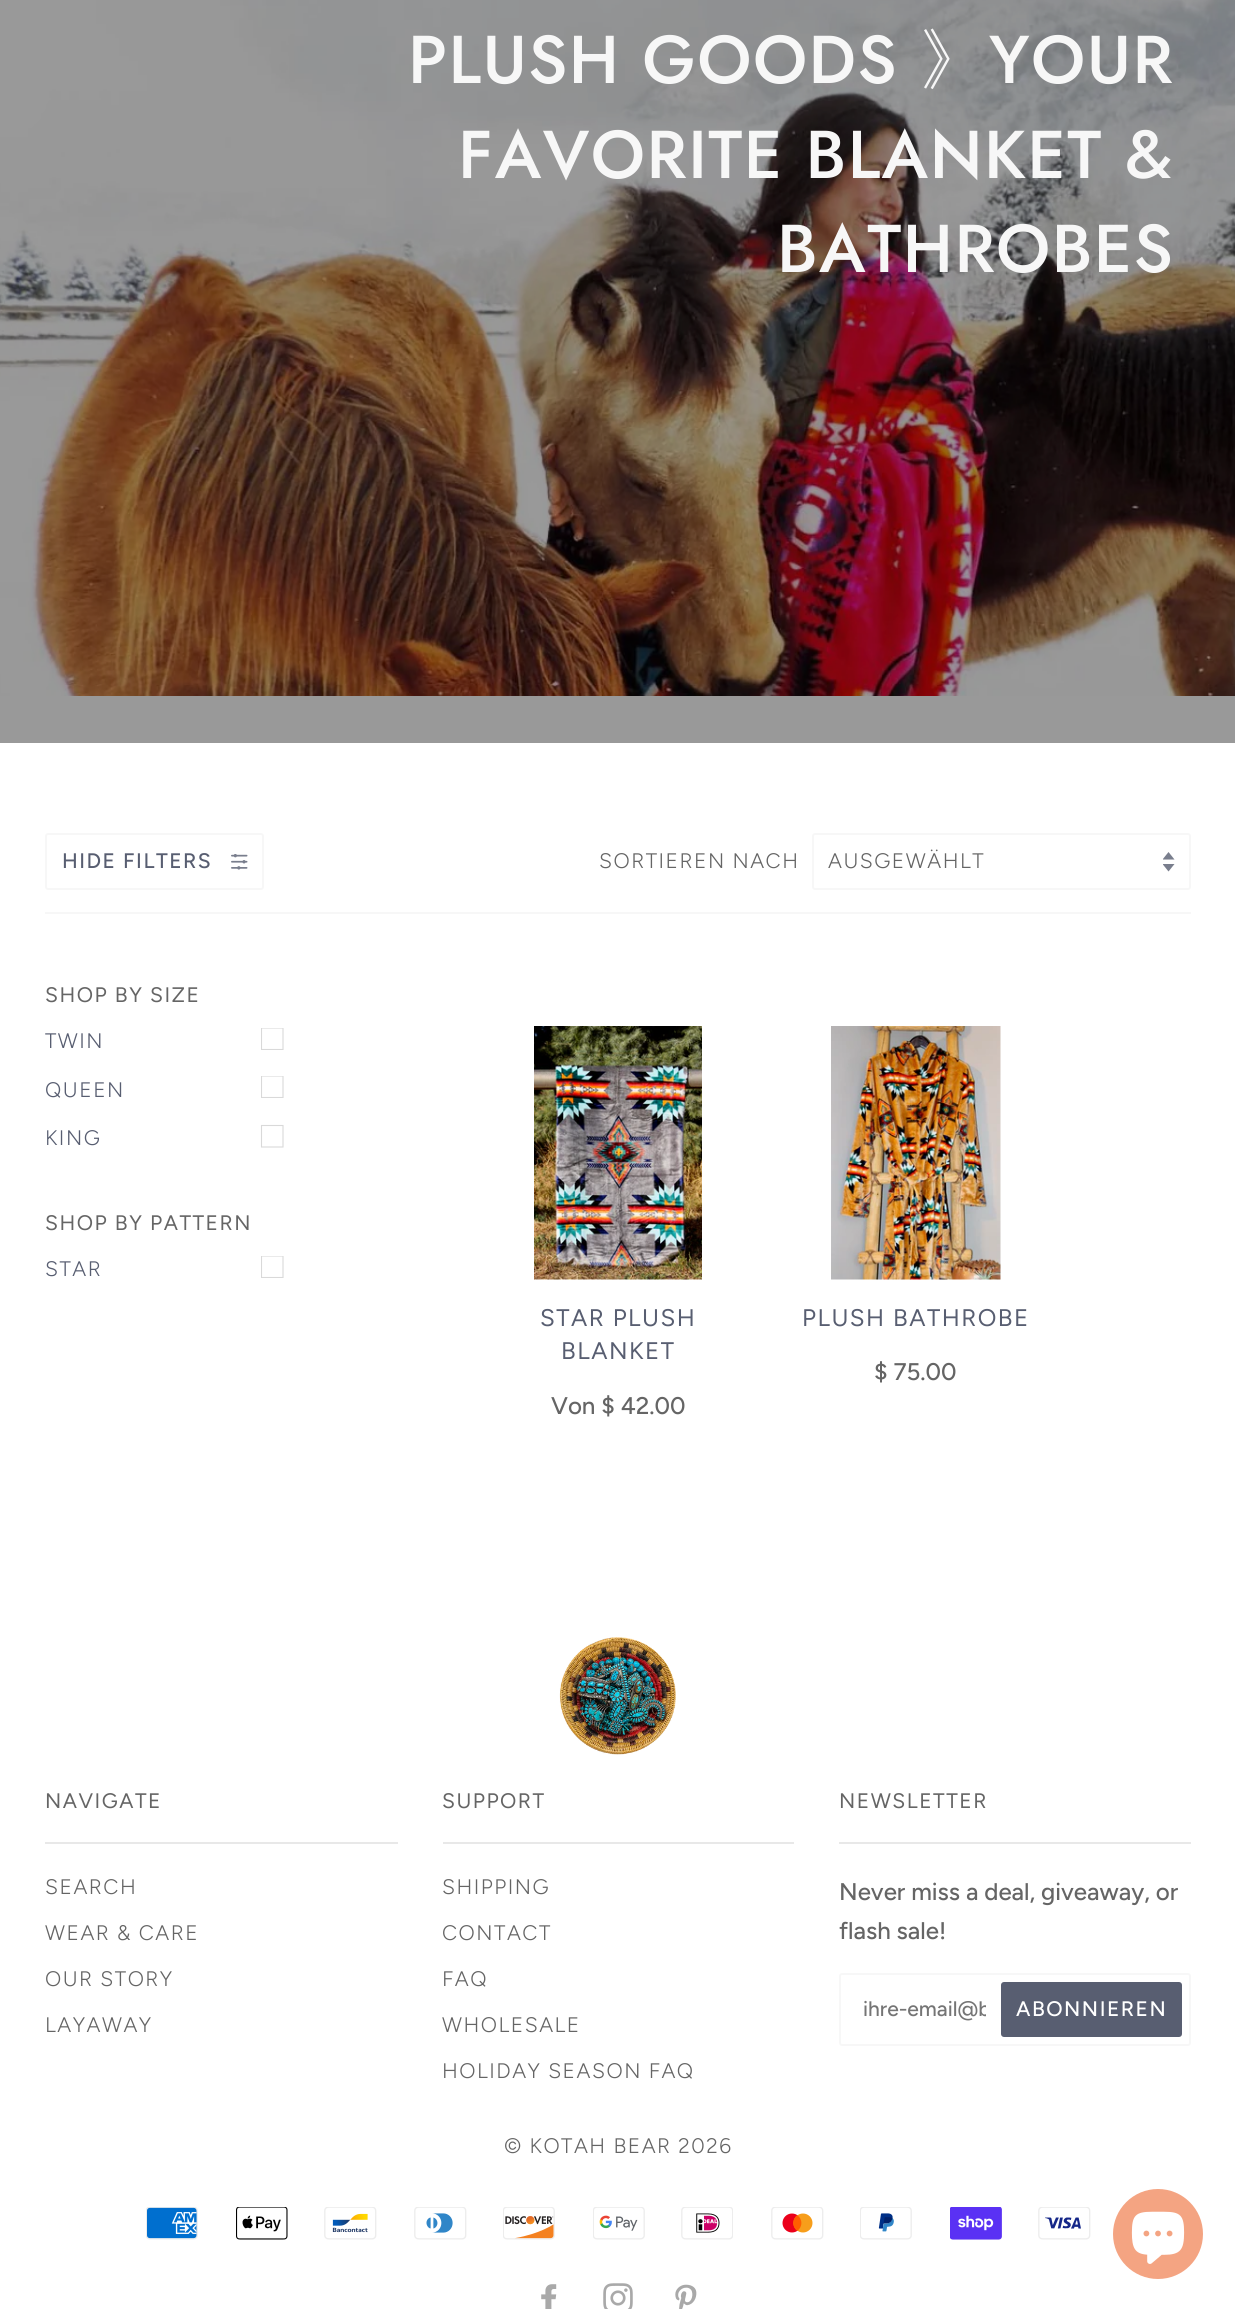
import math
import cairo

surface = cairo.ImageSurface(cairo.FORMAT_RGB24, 1235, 2309)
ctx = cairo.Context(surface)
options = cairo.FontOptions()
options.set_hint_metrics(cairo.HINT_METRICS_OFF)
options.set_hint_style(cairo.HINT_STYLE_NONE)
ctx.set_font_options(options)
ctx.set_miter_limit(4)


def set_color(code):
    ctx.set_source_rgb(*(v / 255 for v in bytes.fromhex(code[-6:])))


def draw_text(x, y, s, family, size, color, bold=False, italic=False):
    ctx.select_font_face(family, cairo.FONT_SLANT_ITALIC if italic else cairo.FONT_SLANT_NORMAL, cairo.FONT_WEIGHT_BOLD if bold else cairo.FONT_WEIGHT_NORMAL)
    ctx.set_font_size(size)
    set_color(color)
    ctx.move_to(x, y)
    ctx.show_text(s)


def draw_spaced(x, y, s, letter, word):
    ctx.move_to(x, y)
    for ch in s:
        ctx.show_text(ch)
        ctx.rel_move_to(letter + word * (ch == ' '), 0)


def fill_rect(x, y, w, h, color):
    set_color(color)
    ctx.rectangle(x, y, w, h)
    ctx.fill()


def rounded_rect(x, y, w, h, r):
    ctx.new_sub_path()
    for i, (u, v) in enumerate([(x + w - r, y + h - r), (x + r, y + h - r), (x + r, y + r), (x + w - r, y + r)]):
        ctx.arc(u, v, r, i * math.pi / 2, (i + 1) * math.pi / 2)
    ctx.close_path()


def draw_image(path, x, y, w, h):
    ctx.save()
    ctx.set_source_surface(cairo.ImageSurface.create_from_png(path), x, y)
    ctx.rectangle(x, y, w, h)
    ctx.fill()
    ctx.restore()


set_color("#ffffff")
ctx.paint()
fill_rect(0, 696, 1235, 47, "#999999")
draw_image("assets/img1.png", 0, 0, 1235, 696)
ctx.select_font_face("Jost Medium")
ctx.set_font_size(67.5)
set_color("#f7f7f7")
draw_spaced(408, 83, "PLUSH GOODS", 1.5, 0)
ctx.select_font_face("WenQuanYi Zen Hei Medium")
draw_spaced(920, 83, "》", 1.5, 0)
ctx.select_font_face("Jost Medium")
draw_spaced(989, 83, "YOUR", 1.5, 0)
draw_spaced(458, 178, "FAVORITE BLANKET &", 1.5, 0)
draw_spaced(777, 272, "BATHROBES", 1.5, 0)
rounded_rect(46, 834, 217, 55, 2)
ctx.stroke()
ctx.select_font_face("Figtree Medium")
ctx.set_font_size(21)
set_color("#585e71")
draw_spaced(62, 868, "HIDE FILTERS", 1.5, 0)
draw_image("assets/img2.png", 231, 854, 17, 16)
ctx.select_font_face("Figtree Light")
set_color("#656565")
draw_spaced(599, 868, "SORTIEREN NACH", 1.5, 0)
draw_image("assets/img3.png", 1163, 852, 12, 20)
rounded_rect(813, 834, 377, 55, 2)
set_color("#f7f7f7")
ctx.stroke()
set_color("#656565")
draw_spaced(828, 868, "AUSGEWÄHLT", 1.5, 0)
fill_rect(45, 912, 1146, 2, "#f7f7f7")
ctx.select_font_face("Figtree")
set_color("#656565")
draw_spaced(45, 1002, "SHOP BY SIZE", 1.5, 0)
ctx.select_font_face("Figtree Light")
set_color("#585e71")
draw_spaced(45, 1048, "TWIN", 1.5, 0)
ctx.save()
ctx.rectangle(261, 1028, 23, 22)
ctx.clip()
ctx.new_path()
ctx.move_to(261.5, 1028)
ctx.line_to(283, 1028)
ctx.line_to(283, 1049.5)
ctx.line_to(261.5, 1049.5)
ctx.close_path()
set_color("#d9d9d9")
ctx.set_line_width(1.1)
ctx.stroke()
ctx.restore()
draw_spaced(45, 1097, "QUEEN", 1.5, 0)
ctx.save()
ctx.rectangle(261, 1076, 23, 22)
ctx.clip()
ctx.new_path()
ctx.move_to(261.5, 1076)
ctx.line_to(283, 1076)
ctx.line_to(283, 1097.5)
ctx.line_to(261.5, 1097.5)
ctx.close_path()
set_color("#d9d9d9")
ctx.set_line_width(1.1)
ctx.stroke()
ctx.restore()
draw_spaced(45, 1145, "KING", 1.5, 0)
ctx.new_path()
ctx.move_to(261.5, 1125.5)
ctx.line_to(283, 1125.5)
ctx.line_to(283, 1147)
ctx.line_to(261.5, 1147)
ctx.close_path()
set_color("#d9d9d9")
ctx.set_line_width(1.1)
ctx.stroke()
ctx.select_font_face("Figtree")
set_color("#656565")
draw_spaced(45, 1230, "SHOP BY PATTERN", 1.5, 0)
ctx.select_font_face("Figtree Light")
set_color("#585e71")
draw_spaced(45, 1276, "STAR", 1.5, 0)
ctx.save()
ctx.rectangle(261, 1256, 23, 22)
ctx.clip()
ctx.new_path()
ctx.move_to(261.5, 1256)
ctx.line_to(283, 1256)
ctx.line_to(283, 1277.5)
ctx.line_to(261.5, 1277.5)
ctx.close_path()
set_color("#d9d9d9")
ctx.stroke()
ctx.restore()
draw_image("assets/img4.png", 534, 1026, 168, 254)
ctx.select_font_face("Figtree")
ctx.set_font_size(24)
draw_spaced(540, 1326, "STAR PLUSH", 1.5, 0)
draw_spaced(561, 1359, "BLANKET", 1.5, 0)
draw_text(551, 1414, "Von $ 42.00", "Figtree Medium", 24.1, "#656565")
draw_image("assets/img5.png", 831, 1026, 170, 254)
ctx.select_font_face("Figtree")
ctx.set_font_size(24)
set_color("#585e71")
draw_spaced(802, 1326, "PLUSH BATHROBE", 1.5, 0)
draw_text(874, 1380, "$ 75.00", "Figtree Medium", 24.1, "#656565")
draw_image("assets/img6.png", 559, 1637, 117, 118)
ctx.select_font_face("Figtree")
ctx.set_font_size(21)
draw_spaced(45, 1808, "NAVIGATE", 1.5, 0)
fill_rect(45, 1842, 353, 2, "#e8e8e8")
ctx.select_font_face("Figtree Light")
set_color("#656565")
draw_spaced(45, 1894, "SEARCH", 1.5, 0)
draw_spaced(45, 1940, "WEAR & CARE", 1.5, 0)
draw_spaced(45, 1986, "OUR STORY", 1.5, 0)
draw_spaced(45, 2032, "LAYAWAY", 1.5, 0)
ctx.select_font_face("Figtree")
draw_spaced(442, 1808, "SUPPORT", 1.5, 0)
fill_rect(443, 1842, 351, 2, "#e8e8e8")
ctx.select_font_face("Figtree Light")
set_color("#656565")
draw_spaced(442, 1894, "SHIPPING", 1.5, 0)
draw_spaced(442, 1940, "CONTACT", 1.5, 0)
draw_spaced(442, 1986, "FAQ", 1.5, 0)
draw_spaced(442, 2032, "WHOLESALE", 1.5, 0)
draw_spaced(442, 2078, "HOLIDAY SEASON FAQ", 1.5, 0)
ctx.select_font_face("Figtree")
draw_spaced(839, 1808, "NEWSLETTER", 1.5, 0)
fill_rect(839, 1842, 352, 2, "#e8e8e8")
draw_text(839, 1900, "Never miss a deal, giveaway, or", "Figtree Medium", 24.1, "#656565")
draw_text(839, 1939, "flash sale!", "Figtree Medium", 24.1, "#656565")
rounded_rect(840, 1974, 350, 71, 2)
set_color("#f7f7f7")
ctx.set_line_width(2)
ctx.stroke()
ctx.save()
ctx.rectangle(863, 1997, 123, 25)
ctx.clip()
draw_text(863, 2016, "ihre-email@b", "Figtree Medium", 21, "#757575")
ctx.restore()
set_color("#585e71")
rounded_rect(1001, 1982, 181, 55, 3)
ctx.fill()
ctx.set_font_size(21)
set_color("#ffffff")
draw_spaced(1016, 2016, "ABONNIEREN", 1.5, 0)
ctx.select_font_face("Figtree Light")
set_color("#656565")
draw_spaced(504, 2153, "© KOTAH BEAR 2026", 1.5, 0)
draw_image("assets/img7.png", 146, 2207, 52, 33)
draw_image("assets/img8.png", 236, 2207, 52, 33)
draw_image("assets/img9.png", 324, 2207, 53, 33)
draw_image("assets/img10.png", 414, 2207, 53, 33)
draw_image("assets/img11.png", 503, 2207, 52, 33)
draw_image("assets/img12.png", 593, 2207, 52, 33)
draw_image("assets/img13.png", 681, 2207, 52, 33)
draw_image("assets/img14.png", 771, 2207, 53, 33)
draw_image("assets/img15.png", 860, 2207, 52, 33)
draw_image("assets/img16.png", 950, 2207, 52, 33)
draw_image("assets/img17.png", 1038, 2207, 53, 33)
draw_image("assets/img18.png", 541, 2284, 16, 25)
draw_image("assets/img19.png", 603, 2283, 30, 26)
draw_image("assets/img20.png", 675, 2284, 22, 25)
set_color("#f4a482")
ctx.arc(1158, 2234, 45, 0, 2 * math.pi)
ctx.fill()
draw_image("assets/img21.png", 1131, 2211, 54, 53)
surface.write_to_png("output.png")
